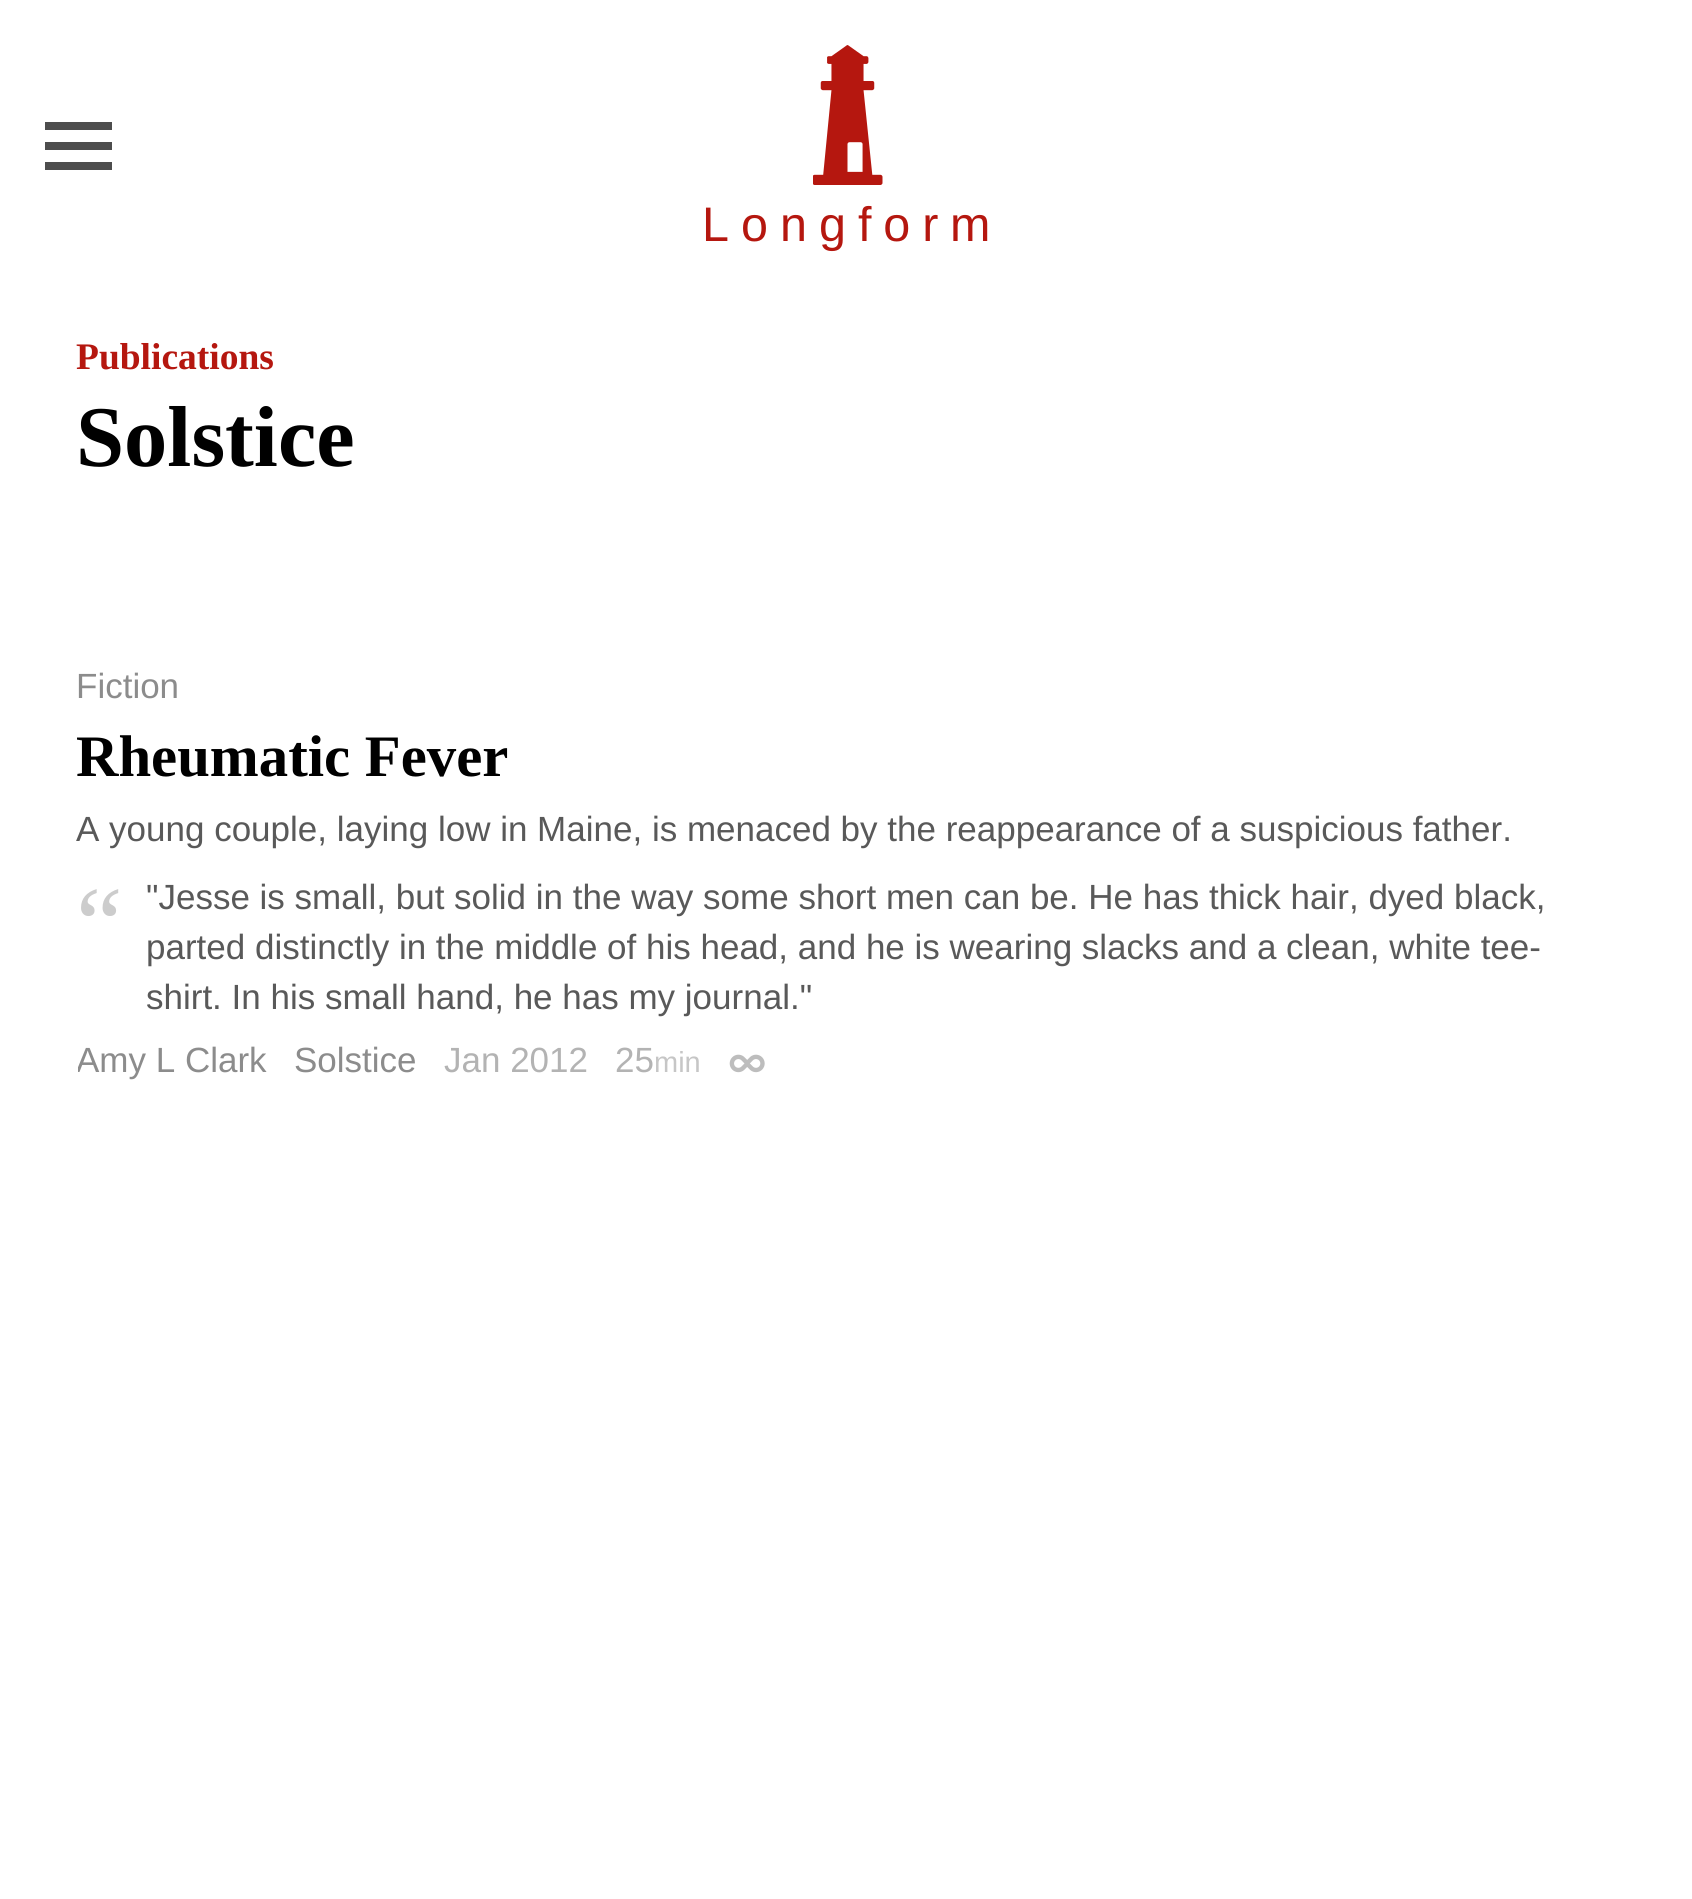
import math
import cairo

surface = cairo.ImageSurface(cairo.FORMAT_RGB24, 1692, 1899)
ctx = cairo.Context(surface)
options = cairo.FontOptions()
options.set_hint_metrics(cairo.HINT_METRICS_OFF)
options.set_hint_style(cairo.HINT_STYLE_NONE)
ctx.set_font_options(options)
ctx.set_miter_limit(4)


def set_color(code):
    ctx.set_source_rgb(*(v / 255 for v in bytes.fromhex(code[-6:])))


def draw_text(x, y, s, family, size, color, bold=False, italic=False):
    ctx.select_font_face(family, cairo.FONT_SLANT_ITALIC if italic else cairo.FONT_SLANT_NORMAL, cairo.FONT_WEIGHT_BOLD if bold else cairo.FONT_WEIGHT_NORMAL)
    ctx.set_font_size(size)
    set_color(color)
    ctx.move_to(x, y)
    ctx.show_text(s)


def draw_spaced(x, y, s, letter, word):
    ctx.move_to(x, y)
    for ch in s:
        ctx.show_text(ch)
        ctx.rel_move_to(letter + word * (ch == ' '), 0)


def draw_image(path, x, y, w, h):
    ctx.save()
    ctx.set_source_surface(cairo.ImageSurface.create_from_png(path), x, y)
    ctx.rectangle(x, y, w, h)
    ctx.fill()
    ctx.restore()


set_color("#ffffff")
ctx.paint()
ctx.save()
ctx.rectangle(45, 113, 68, 67)
ctx.clip()
set_color("#4d4d4d")
ctx.set_fill_rule(cairo.FILL_RULE_EVEN_ODD)
ctx.new_path()
ctx.move_to(45, 122)
ctx.line_to(112, 122)
ctx.line_to(112, 130)
ctx.line_to(45, 130)
ctx.close_path()
ctx.move_to(45, 142)
ctx.line_to(112, 142)
ctx.line_to(112, 150)
ctx.line_to(45, 150)
ctx.close_path()
ctx.move_to(45, 162)
ctx.line_to(112, 162)
ctx.line_to(112, 170)
ctx.line_to(45, 170)
ctx.close_path()
ctx.move_to(146, 141)
ctx.line_to(125, 120)
ctx.line_to(120, 125)
ctx.line_to(141, 146)
ctx.line_to(120, 167)
ctx.line_to(125, 173)
ctx.line_to(146, 152)
ctx.line_to(167, 173)
ctx.line_to(173, 167)
ctx.line_to(152, 146)
ctx.line_to(173, 125)
ctx.line_to(167, 120)
ctx.close_path()
ctx.fill()
ctx.restore()
draw_image("assets/img1.png", 813, 45, 70, 140)
ctx.select_font_face("Liberation Sans")
ctx.set_font_size(48.5)
set_color("#b5170f")
draw_spaced(702, 241, "Longfor", 12, 0)
draw_text(950, 241, "m", "Liberation Sans", 48.5, "#b5170f")
draw_text(76, 369, "Publications", "Liberation Serif", 37.5, "#b5170f", bold=True)
draw_text(76, 466, "Solstice", "Liberation Serif", 86.5, "#000000", bold=True)
draw_text(76, 698, "Fiction", "Liberation Sans", 35, "#8c8c8c")
draw_text(76, 776, "Rheumatic Fever", "Liberation Serif", 58.75, "#000000", bold=True)
draw_text(76, 841, "A young couple, laying low in Maine, is menaced by the reappearance of a suspicious father.", "Liberation Sans", 35, "#595959")
draw_text(76, 959, "“", "Liberation Serif", 105, "#cccccc")
draw_text(146, 909, "\"Jesse is small, but solid in the way some short men can be. He has thick hair, dyed black,", "Liberation Sans", 35, "#595959")
draw_text(146, 959, "parted distinctly in the middle of his head, and he is wearing slacks and a clean, white tee-", "Liberation Sans", 35, "#595959")
draw_text(146, 1009, "shirt. In his small hand, he has my journal.\"", "Liberation Sans", 35, "#595959")
ctx.save()
ctx.rectangle(78, 1040, 1540, 40)
ctx.clip()
draw_text(76, 1072, "Amy L Clark", "Liberation Sans", 35, "#8c8c8c")
ctx.restore()
draw_text(294, 1072, "Solstice", "Liberation Sans", 35, "#8c8c8c")
draw_text(444, 1072, "Jan 2012", "Liberation Sans", 35, "#b3b3b3")
draw_text(615, 1072, "25", "Liberation Sans", 35, "#b3b3b3")
draw_text(654, 1072, "min", "Liberation Sans", 29, "#c6c6c6")
draw_image("assets/img2.png", 729, 1054, 36, 19)
surface.write_to_png("output.png")
